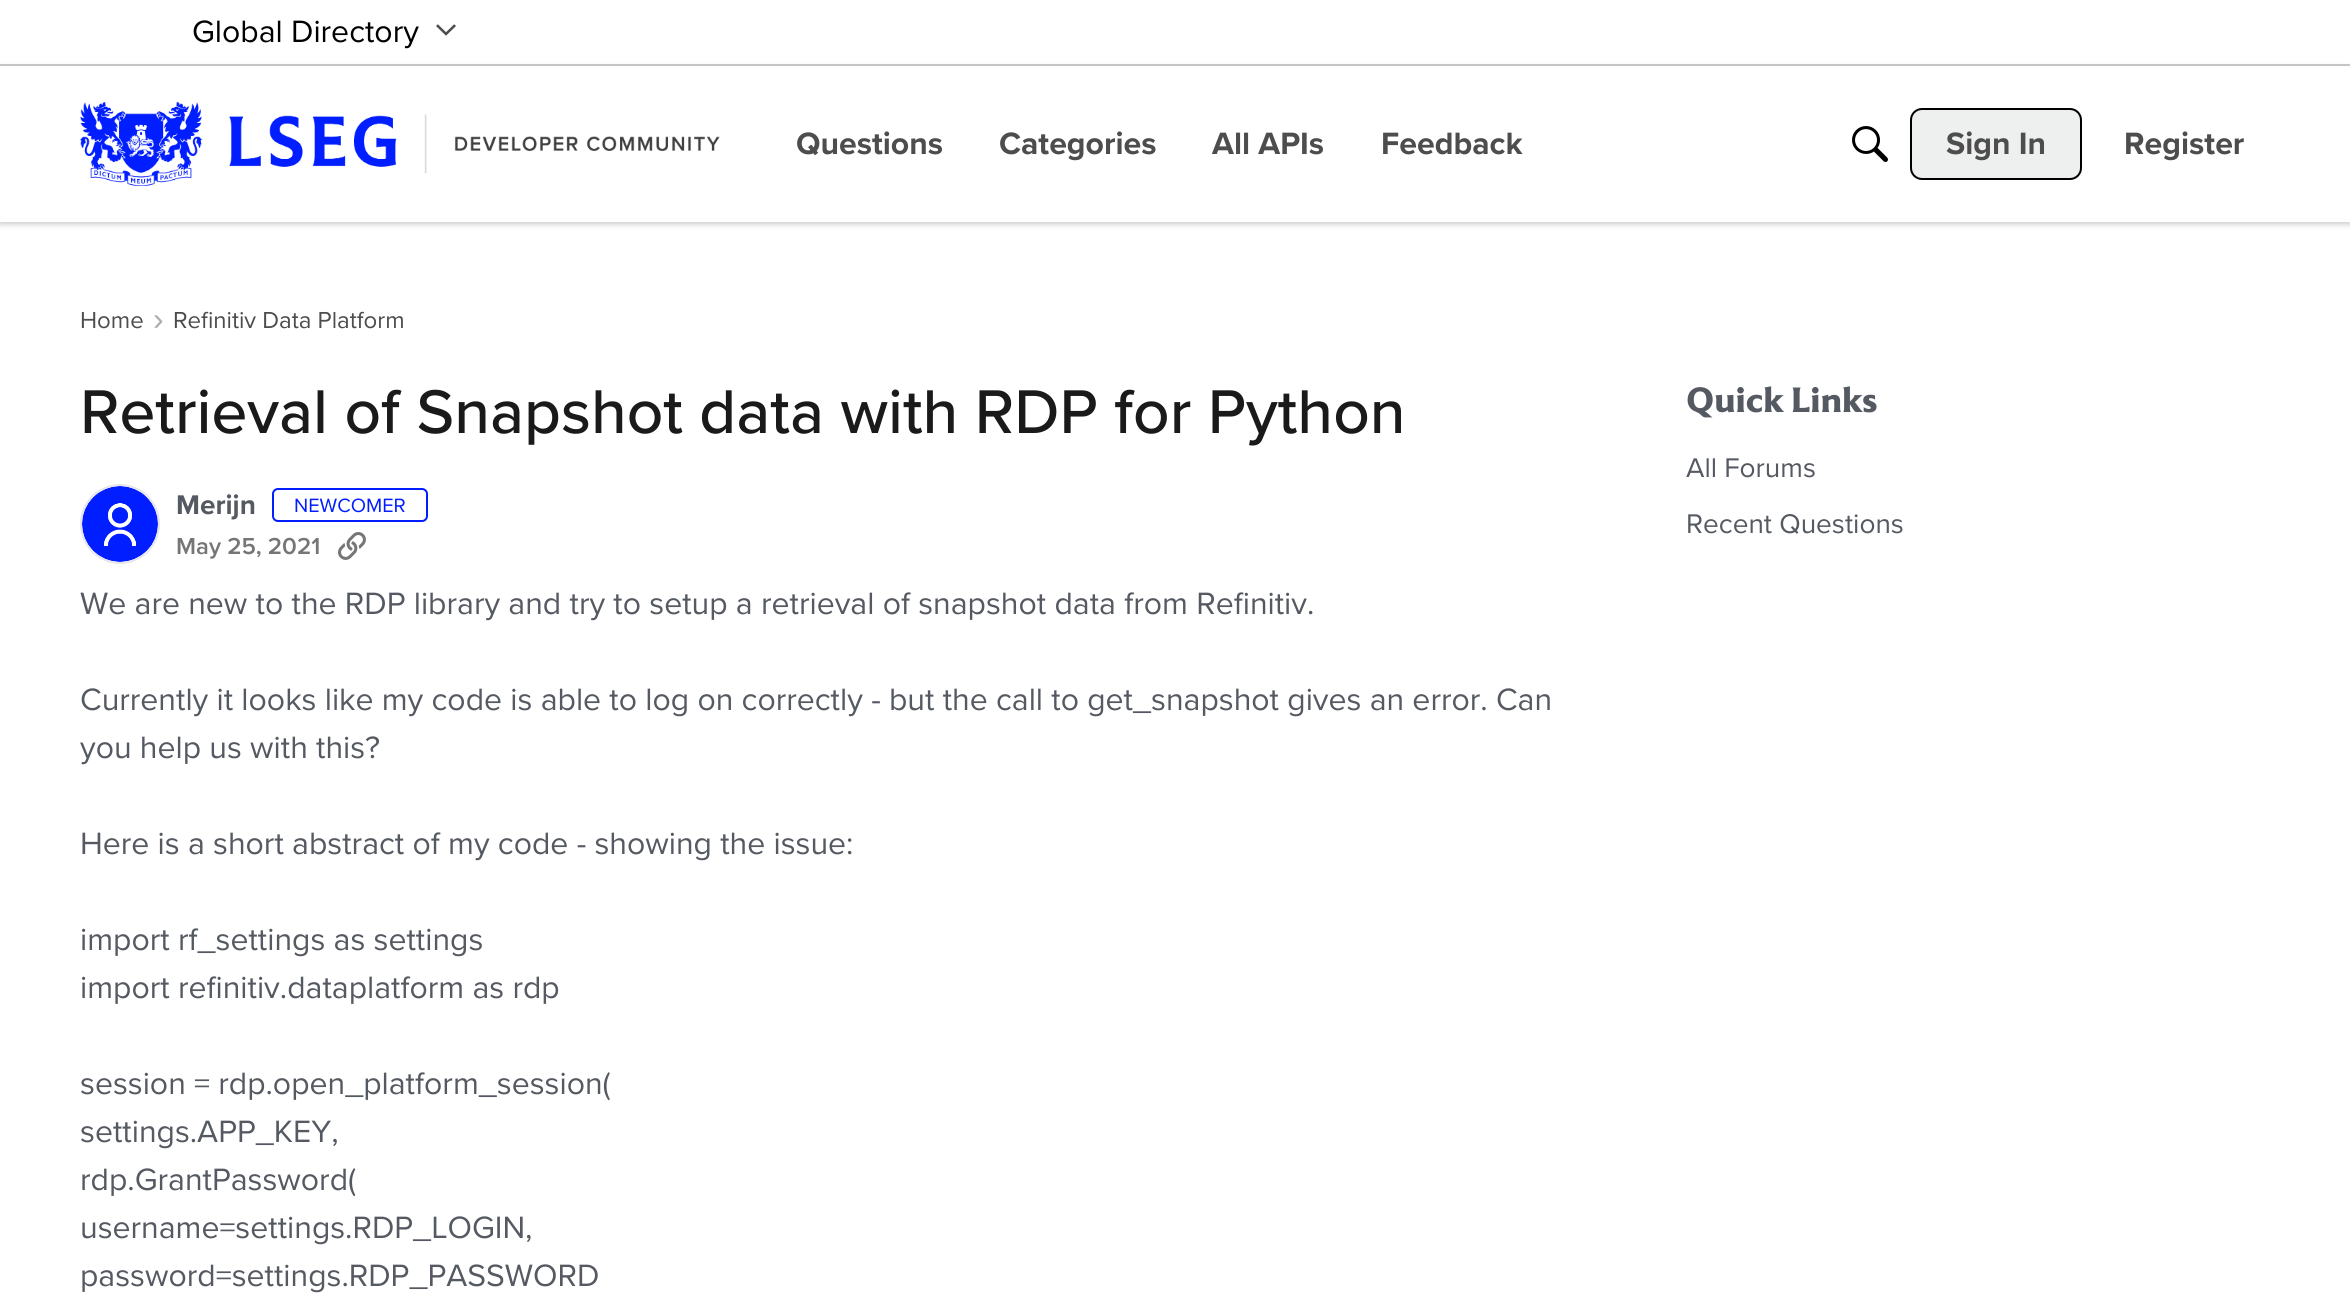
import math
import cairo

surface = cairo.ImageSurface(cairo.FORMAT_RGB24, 2350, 1299)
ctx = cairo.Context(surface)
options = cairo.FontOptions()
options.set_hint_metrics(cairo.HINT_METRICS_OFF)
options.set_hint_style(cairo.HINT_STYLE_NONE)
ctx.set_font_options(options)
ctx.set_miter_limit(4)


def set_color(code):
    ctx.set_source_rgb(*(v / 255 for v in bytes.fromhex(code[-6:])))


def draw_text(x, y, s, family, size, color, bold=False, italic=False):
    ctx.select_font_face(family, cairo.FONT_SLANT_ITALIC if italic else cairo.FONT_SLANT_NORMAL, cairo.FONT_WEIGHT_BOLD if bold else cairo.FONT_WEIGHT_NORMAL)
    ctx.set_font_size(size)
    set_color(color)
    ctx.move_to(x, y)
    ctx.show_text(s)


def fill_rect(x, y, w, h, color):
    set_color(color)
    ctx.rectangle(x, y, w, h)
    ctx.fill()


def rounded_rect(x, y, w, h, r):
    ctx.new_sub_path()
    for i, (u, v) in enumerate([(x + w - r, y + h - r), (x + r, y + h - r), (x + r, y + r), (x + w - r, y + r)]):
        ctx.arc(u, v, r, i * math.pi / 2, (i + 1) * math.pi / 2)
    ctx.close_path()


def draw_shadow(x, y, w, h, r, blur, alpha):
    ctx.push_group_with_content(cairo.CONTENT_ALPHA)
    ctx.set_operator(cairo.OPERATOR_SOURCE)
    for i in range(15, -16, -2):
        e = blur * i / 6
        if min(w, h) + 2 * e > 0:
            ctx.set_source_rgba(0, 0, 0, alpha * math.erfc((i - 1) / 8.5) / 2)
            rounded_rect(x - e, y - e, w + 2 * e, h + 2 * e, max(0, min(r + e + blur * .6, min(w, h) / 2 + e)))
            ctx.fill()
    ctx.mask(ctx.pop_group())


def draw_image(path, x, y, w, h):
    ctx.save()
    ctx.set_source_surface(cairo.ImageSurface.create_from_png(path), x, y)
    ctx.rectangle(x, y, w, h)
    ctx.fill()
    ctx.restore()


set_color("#ffffff")
ctx.paint()
fill_rect(0, 64, 2350, 2, "#cccccc")
draw_text(192, 42, "Global Directory", "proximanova", 32, "#000000")
draw_image("assets/img1.png", 436, 24, 20, 12)
ctx.save()
ctx.set_fill_rule(cairo.FILL_RULE_EVEN_ODD)
ctx.new_path()
ctx.move_to(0, 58)
ctx.line_to(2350, 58)
ctx.line_to(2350, 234)
ctx.line_to(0, 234)
ctx.close_path()
ctx.move_to(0, 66)
ctx.line_to(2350, 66)
ctx.line_to(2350, 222)
ctx.line_to(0, 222)
ctx.close_path()
ctx.clip()
set_color("#000000")
draw_shadow(0, 68, 2350, 156, 0, 3, 0.22)
ctx.restore()
draw_image("assets/img2.png", 80, 102, 640, 84)
draw_text(796, 154, "Questions", "proximanova", 32, "#4d4d4d", bold=True)
draw_text(999, 154, "Categories", "proximanova", 32, "#4d4d4d", bold=True)
draw_text(1212, 154, "All APIs", "proximanova", 32, "#4d4d4d", bold=True)
draw_text(1381, 154, "Feedback", "proximanova", 32, "#4d4d4d", bold=True)
draw_image("assets/img3.png", 1852, 126, 36, 36)
set_color("#eeefef")
rounded_rect(1911, 109, 170, 70, 11)
ctx.fill_preserve()
set_color("#000000")
ctx.stroke()
draw_text(1946, 154, "Sign In", "proximanova", 32, "#4d4d4d", bold=True)
draw_text(2124, 154, "Register", "proximanova", 32, "#4d4d4d", bold=True)
draw_text(80, 328, "Home", "proximanova", 24, "#4d4d4d")
draw_text(153, 330, "›", "Liberation Sans", 32, "#aaadb1")
draw_text(173, 328, "Refinitiv Data Platform", "proximanova", 24, "#4d4d4d")
draw_text(80, 433, "Retrieval of Snapshot data with RDP for Python", "Proxima Nova Medium", 64, "#1a1a1a")
ctx.new_path()
ctx.arc(120, 524, 39, 0, 2 * math.pi)
set_color("#e6e6e8")
ctx.stroke()
draw_image("assets/img4.png", 82, 486, 76, 76)
draw_text(176, 514, "Merijn", "proximanova", 28, "#555a62", bold=True)
rounded_rect(273, 489, 154, 32, 5)
set_color("#001eff")
ctx.stroke()
draw_text(294, 512, "NEWCOMER", "proximanova", 20, "#001eff")
draw_text(176, 554, "May 25, 2021", "Proxima Nova SemiBold", 24, "#767676")
draw_image("assets/img5.png", 338, 532, 28, 28)
draw_text(80, 614, "We are new to the RDP library and try to setup a retrieval of snapshot data from Refinitiv.", "proximanova", 32, "#555a62")
draw_text(80, 710, "Currently it looks like my code is able to log on correctly - but the call to get_snapshot gives an error. Can", "proximanova", 32, "#555a62")
draw_text(80, 758, "you help us with this?", "proximanova", 32, "#555a62")
draw_text(80, 854, "Here is a short abstract of my code - showing the issue:", "proximanova", 32, "#555a62")
draw_text(80, 950, "import rf_settings as settings", "proximanova", 32, "#555a62")
draw_text(80, 998, "import refinitiv.dataplatform as rdp", "proximanova", 32, "#555a62")
draw_text(80, 1094, "session = rdp.open_platform_session(", "proximanova", 32, "#555a62")
draw_text(80, 1142, "settings.APP_KEY,", "proximanova", 32, "#555a62")
draw_text(80, 1190, "rdp.GrantPassword(", "proximanova", 32, "#555a62")
draw_text(80, 1238, "username=settings.RDP_LOGIN,", "proximanova", 32, "#555a62")
draw_text(80, 1286, "password=settings.RDP_PASSWORD", "proximanova", 32, "#555a62")
draw_text(1686, 412, "Quick Links", "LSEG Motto", 36, "#555a62", bold=True)
draw_text(1686, 477, "All Forums", "proximanova", 28, "#555a62")
draw_text(1686, 533, "Recent Questions", "proximanova", 28, "#555a62")
surface.write_to_png("output.png")
